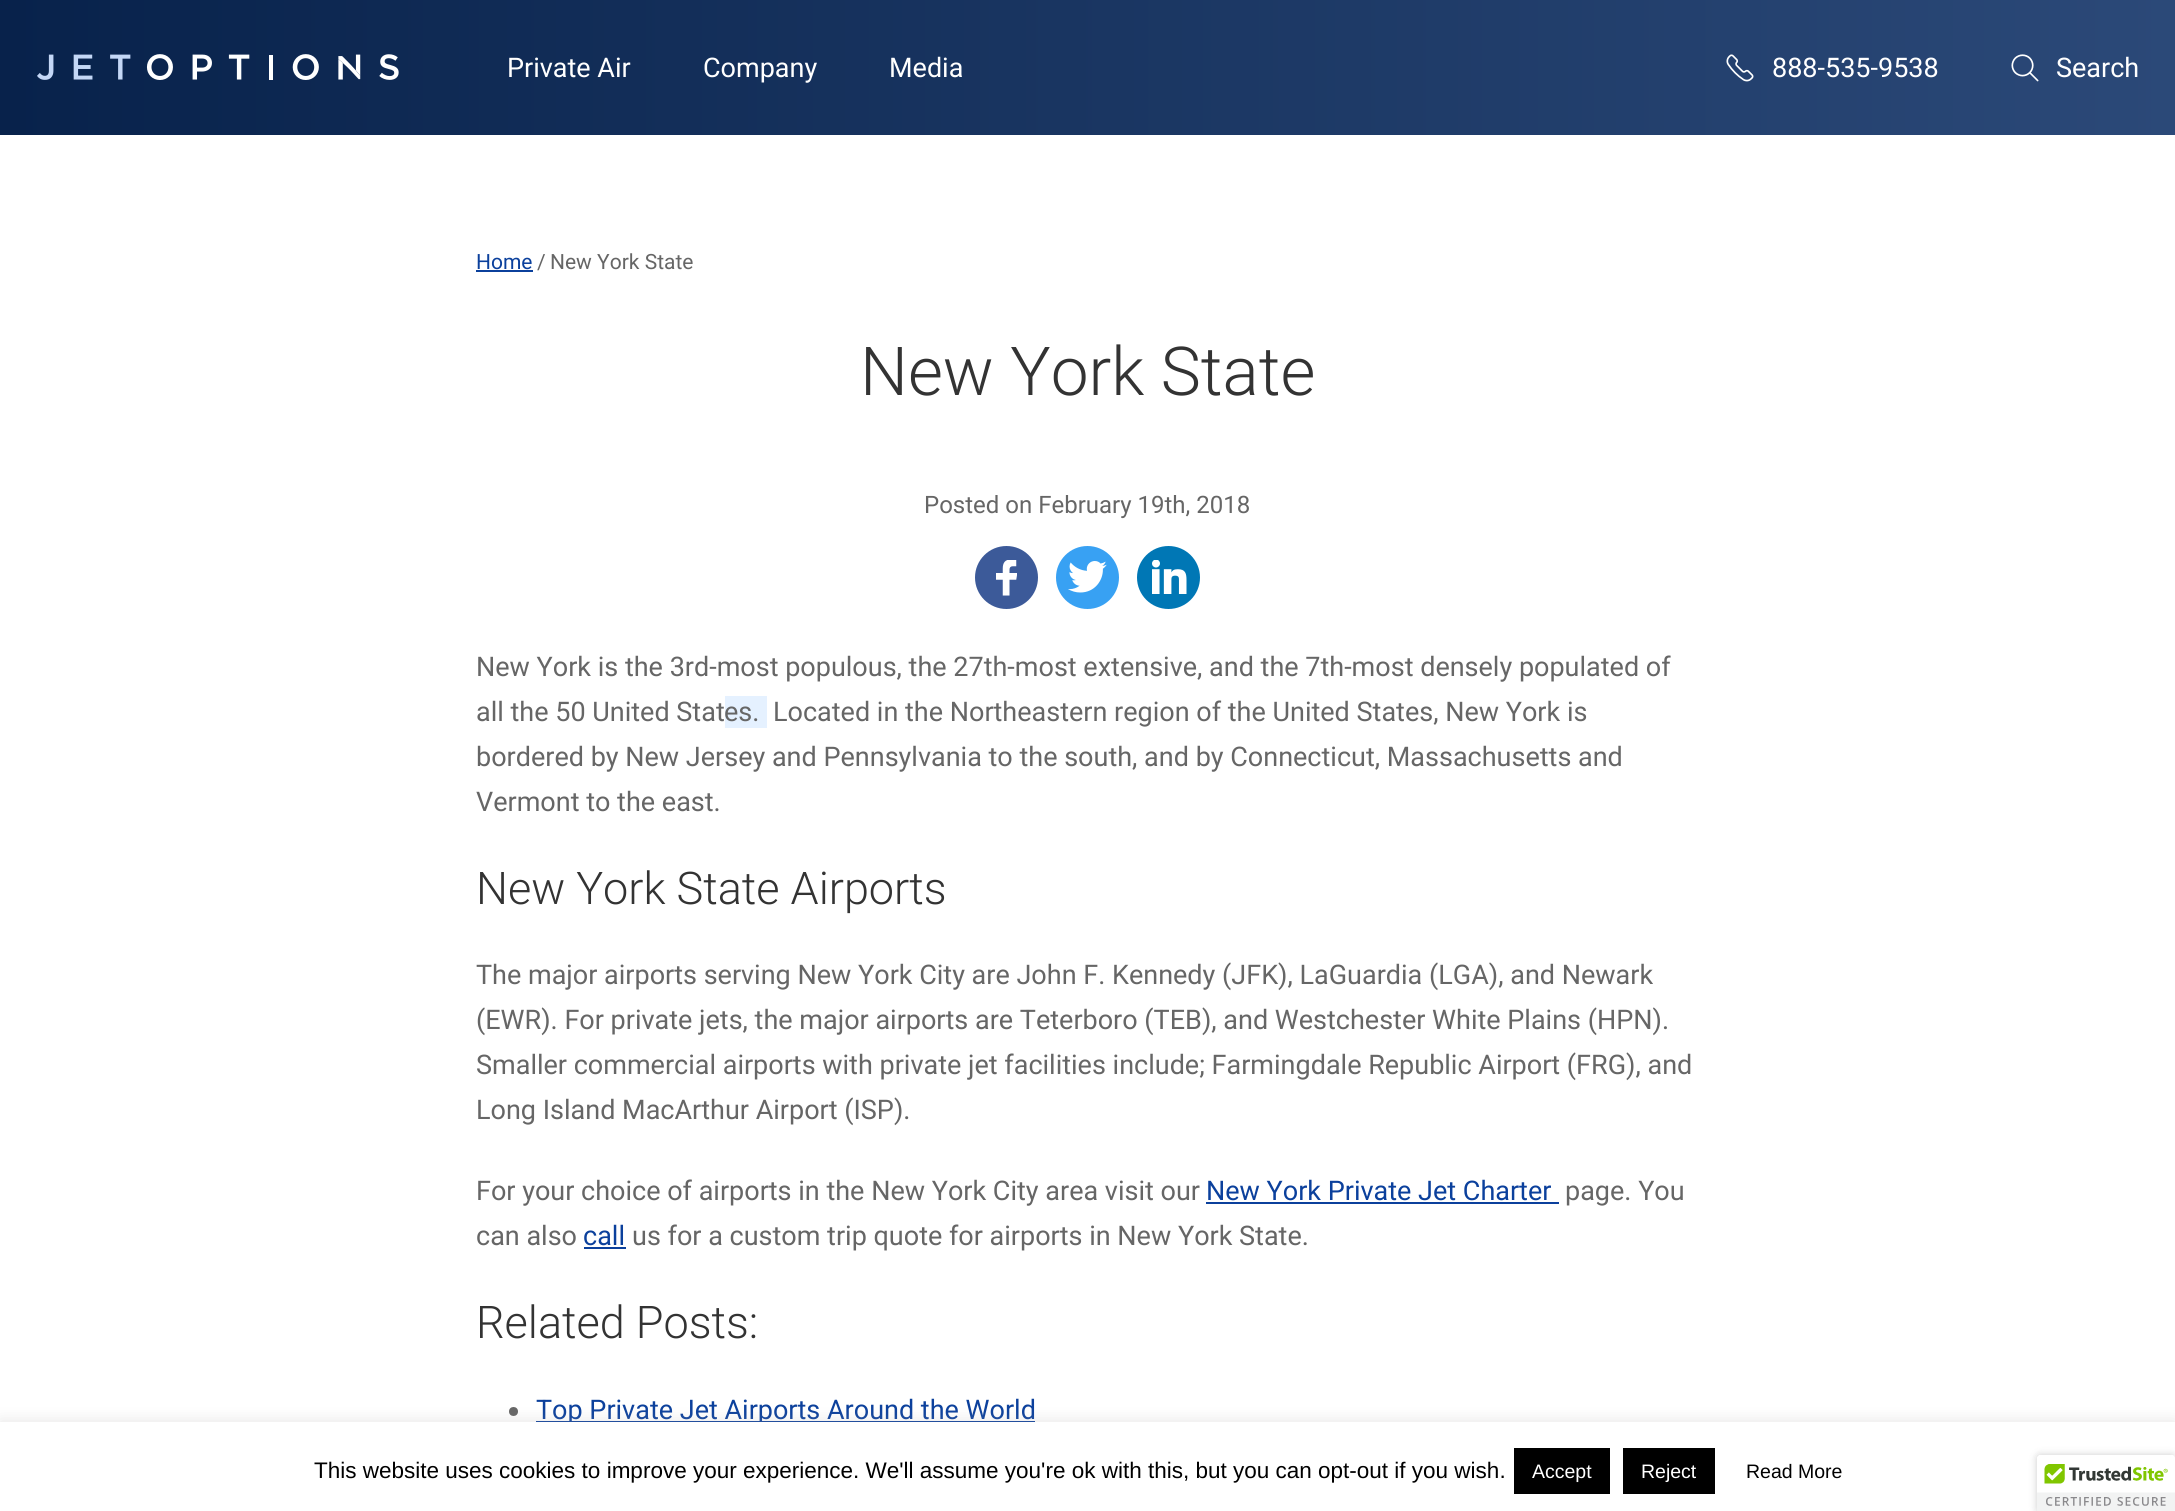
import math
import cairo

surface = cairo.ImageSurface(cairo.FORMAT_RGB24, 2175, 1511)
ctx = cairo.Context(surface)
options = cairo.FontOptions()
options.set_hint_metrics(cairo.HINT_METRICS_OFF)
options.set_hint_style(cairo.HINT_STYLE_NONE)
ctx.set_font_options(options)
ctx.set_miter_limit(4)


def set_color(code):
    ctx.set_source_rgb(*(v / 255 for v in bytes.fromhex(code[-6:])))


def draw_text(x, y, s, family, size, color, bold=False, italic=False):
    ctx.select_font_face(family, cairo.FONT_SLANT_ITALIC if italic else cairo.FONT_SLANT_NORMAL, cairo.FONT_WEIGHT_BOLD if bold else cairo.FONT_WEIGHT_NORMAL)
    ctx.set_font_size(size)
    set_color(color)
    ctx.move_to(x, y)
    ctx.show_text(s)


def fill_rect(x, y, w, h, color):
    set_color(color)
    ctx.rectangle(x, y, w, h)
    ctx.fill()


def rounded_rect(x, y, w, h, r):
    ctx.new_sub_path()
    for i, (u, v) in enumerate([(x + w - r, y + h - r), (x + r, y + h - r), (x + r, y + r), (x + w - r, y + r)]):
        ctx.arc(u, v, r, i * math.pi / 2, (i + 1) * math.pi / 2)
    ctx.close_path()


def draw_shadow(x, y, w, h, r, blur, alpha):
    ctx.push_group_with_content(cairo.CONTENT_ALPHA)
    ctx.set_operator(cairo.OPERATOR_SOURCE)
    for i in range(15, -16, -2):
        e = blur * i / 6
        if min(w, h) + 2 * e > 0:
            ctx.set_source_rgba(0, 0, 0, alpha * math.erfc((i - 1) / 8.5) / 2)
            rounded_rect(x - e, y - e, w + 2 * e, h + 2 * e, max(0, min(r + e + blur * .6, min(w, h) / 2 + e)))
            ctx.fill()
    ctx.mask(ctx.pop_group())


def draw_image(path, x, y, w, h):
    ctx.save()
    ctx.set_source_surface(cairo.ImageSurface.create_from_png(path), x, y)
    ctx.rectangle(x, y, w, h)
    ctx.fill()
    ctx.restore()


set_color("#ffffff")
ctx.paint()
gradient = cairo.LinearGradient(0, 68, 2175, 67)
gradient.add_color_stop_rgba(0, 0.031, 0.133, 0.294, 1)
gradient.add_color_stop_rgba(1, 0.169, 0.286, 0.471, 1)
ctx.set_source(gradient)
ctx.rectangle(0, 0, 2175, 135)
ctx.fill()
draw_image("assets/img1.png", 37, 54, 362, 26)
draw_text(507, 77, "Private Air", "Roboto", 27, "#ffffff")
draw_text(703, 77, "Company", "Roboto", 27, "#ffffff")
draw_text(889, 77, "Media", "Roboto", 27, "#ffffff")
draw_image("assets/img2.png", 1726, 54, 28, 28)
draw_text(1772, 77, "888-535-9538", "Roboto", 27, "#ffffff")
draw_image("assets/img3.png", 2011, 54, 28, 28)
draw_text(2056, 77, "Search", "Roboto", 27, "#ffffff")
draw_text(476, 269, "Home", "Roboto", 21, "#0b409c")
fill_rect(476, 270, 57, 2, "#0b409c")
draw_text(537, 269, "/", "Roboto", 21, "#666666")
draw_text(550, 269, "New York State", "Roboto", 21, "#666666")
draw_text(860, 395, "New York State", "Roboto Light", 67.5, "#333333")
draw_text(924, 513, "Posted on February 19th, 2018", "Roboto", 24, "#666666")
set_color("#3c5a99")
ctx.new_path()
ctx.arc(1006.5, 577.5, 31.5, 0, 2 * math.pi)
ctx.fill()
draw_image("assets/img4.png", 996, 560, 21, 36)
set_color("#38a1f3")
ctx.arc(1087.5, 577.5, 31.5, 0, 2 * math.pi)
ctx.fill()
draw_image("assets/img5.png", 1068, 561, 39, 32)
set_color("#0077b5")
ctx.arc(1168.5, 577.5, 31.5, 0, 2 * math.pi)
ctx.fill()
draw_image("assets/img6.png", 1152, 560, 35, 34)
draw_text(476, 676, "New York is the 3rd-most populous, the 27th-most extensive, and the 7th-most densely populated of", "Roboto", 27, "#666666")
draw_text(476, 721, "all the 50 United Stat", "Roboto", 27, "#666666")
fill_rect(725, 696, 42, 32, "#e5f1ff")
draw_text(724, 721, "es.", "Roboto", 27, "#666666")
draw_text(773, 721, "Located in the Northeastern region of the United States, New York is", "Roboto", 27, "#666666")
draw_text(476, 766, "bordered by New Jersey and Pennsylvania to the south, and by Connecticut, Massachusetts and", "Roboto", 27, "#666666")
draw_text(476, 811, "Vermont to the east.", "Roboto", 27, "#666666")
draw_text(476, 904, "New York State Airports", "Roboto Light", 45, "#333333")
draw_text(476, 984, "The major airports serving New York City are John F. Kennedy (JFK), LaGuardia (LGA), and Newark", "Roboto", 27, "#666666")
draw_text(476, 1029, "(EWR). For private jets, the major airports are Teterboro (TEB), and Westchester White Plains (HPN).", "Roboto", 27, "#666666")
draw_text(476, 1074, "Smaller commercial airports with private jet facilities include; Farmingdale Republic Airport (FRG), and", "Roboto", 27, "#666666")
draw_text(476, 1119, "Long Island MacArthur Airport (ISP).", "Roboto", 27, "#666666")
draw_text(476, 1200, "For your choice of airports in the New York City area visit our", "Roboto", 27, "#666666")
draw_text(1206, 1200, "New York Private Jet Charter", "Roboto", 27, "#0b409c")
fill_rect(1206, 1202, 353, 2, "#0b409c")
draw_text(1565, 1200, "page. You", "Roboto", 27, "#666666")
draw_text(476, 1245, "can also", "Roboto", 27, "#666666")
draw_text(583, 1245, "call", "Roboto", 27, "#0b409c")
fill_rect(584, 1247, 42, 2, "#0b409c")
draw_text(632, 1245, "us for a custom trip quote for airports in New York State.", "Roboto", 27, "#666666")
draw_text(476, 1338, "Related Posts:", "Roboto Light", 45, "#333333")
set_color("#666666")
ctx.new_path()
ctx.arc(513.5, 1411.5, 4.5, 0, 2 * math.pi)
ctx.fill()
fill_rect(536, 1421, 499, 1, "#0b409c")
draw_text(536, 1419, "Top Private Jet Airports Around the World", "Roboto", 27, "#0b409c")
set_color("#acabab")
draw_shadow(0, 1421, 2175, 90, 0, 7.5, 0.3)
fill_rect(0, 1422, 2175, 89, "#ffffff")
draw_text(314, 1478, "This website uses cookies to improve your experience. We'll assume you're ok with this, but you can opt-out if you wish.", "Liberation Sans", 22.5, "#000000")
fill_rect(1514, 1448, 96, 46, "#000000")
draw_text(1532, 1478, "Accept", "Liberation Sans", 19.5, "#ffffff")
fill_rect(1623, 1448, 92, 46, "#000000")
draw_text(1641, 1478, "Reject", "Liberation Sans", 19.5, "#ffffff")
draw_text(1746, 1478, "Read More", "Liberation Sans", 19.5, "#000000")
set_color("#000000")
draw_shadow(2037, 1455, 138, 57, 3, 4, 0.2)
set_color("#ffffff")
ctx.new_path()
ctx.move_to(2040, 1455)
ctx.line_to(2175, 1455)
ctx.line_to(2175, 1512)
ctx.line_to(2037, 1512)
ctx.line_to(2037, 1458)
ctx.curve_to(2037, 1456.5, 2038.5, 1455, 2040, 1455)
ctx.close_path()
ctx.fill()
draw_image("assets/img7.png", 2037, 1455, 138, 56)
surface.write_to_png("output.png")
